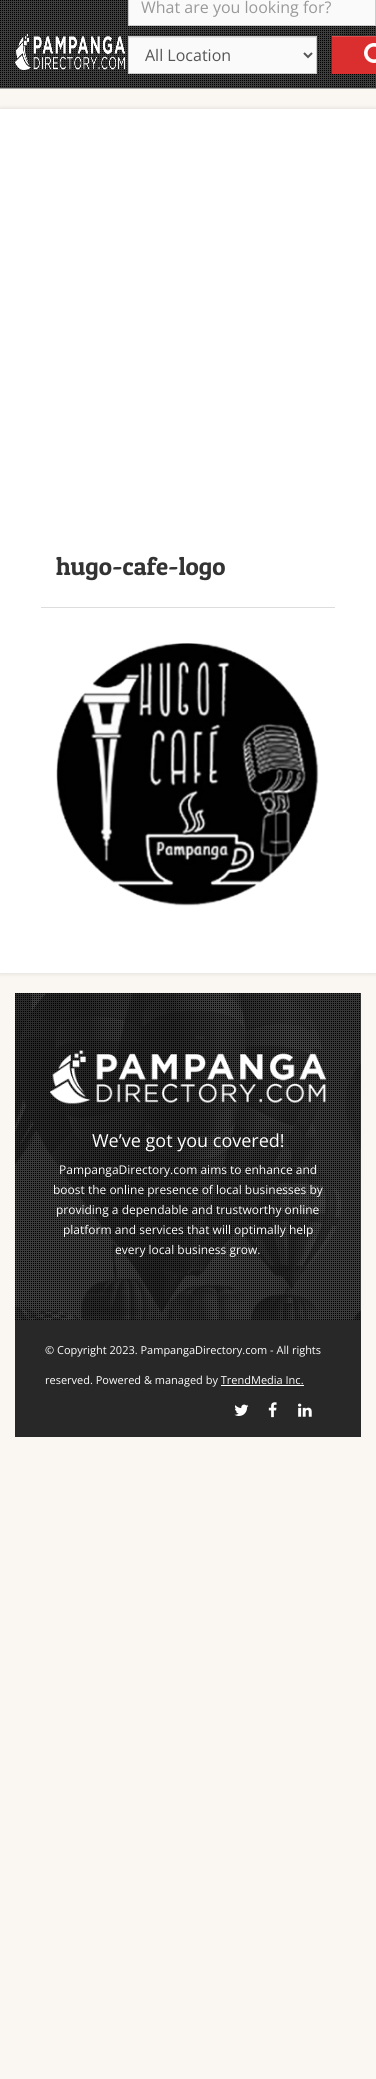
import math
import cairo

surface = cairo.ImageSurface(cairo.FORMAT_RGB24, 376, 2079)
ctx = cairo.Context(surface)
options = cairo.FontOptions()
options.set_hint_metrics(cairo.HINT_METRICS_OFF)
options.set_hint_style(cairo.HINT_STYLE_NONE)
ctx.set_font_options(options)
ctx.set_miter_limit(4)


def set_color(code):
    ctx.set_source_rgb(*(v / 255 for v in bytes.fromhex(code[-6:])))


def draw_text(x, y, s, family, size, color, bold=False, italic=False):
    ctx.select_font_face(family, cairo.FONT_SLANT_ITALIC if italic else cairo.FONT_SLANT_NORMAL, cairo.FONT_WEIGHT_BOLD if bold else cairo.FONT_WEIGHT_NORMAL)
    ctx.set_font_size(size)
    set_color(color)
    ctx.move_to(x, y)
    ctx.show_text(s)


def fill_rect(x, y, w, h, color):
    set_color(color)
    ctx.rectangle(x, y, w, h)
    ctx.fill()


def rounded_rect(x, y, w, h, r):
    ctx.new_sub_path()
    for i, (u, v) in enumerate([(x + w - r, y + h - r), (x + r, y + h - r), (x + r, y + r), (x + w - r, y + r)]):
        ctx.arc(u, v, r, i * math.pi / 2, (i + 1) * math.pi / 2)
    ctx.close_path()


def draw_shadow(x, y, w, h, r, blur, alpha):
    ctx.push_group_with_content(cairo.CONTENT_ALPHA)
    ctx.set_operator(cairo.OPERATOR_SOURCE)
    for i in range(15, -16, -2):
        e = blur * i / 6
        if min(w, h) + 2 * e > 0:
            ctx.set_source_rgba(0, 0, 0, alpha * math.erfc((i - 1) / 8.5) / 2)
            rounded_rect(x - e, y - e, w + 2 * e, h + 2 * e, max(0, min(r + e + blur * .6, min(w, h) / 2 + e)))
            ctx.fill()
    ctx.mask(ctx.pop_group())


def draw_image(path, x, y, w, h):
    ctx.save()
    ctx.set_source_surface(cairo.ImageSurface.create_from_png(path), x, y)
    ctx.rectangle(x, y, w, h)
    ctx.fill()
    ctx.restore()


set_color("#faf6f2")
ctx.paint()
draw_image("assets/img1.png", 0, 0, 376, 88)
fill_rect(0, 88, 376, 1, "#a0a0a0")
draw_image("assets/img2.png", 15, 34, 110, 36)
set_color("#fafafa")
ctx.rectangle(128.5, -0.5, 247, 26)
ctx.fill_preserve()
set_color("#cccccc")
ctx.set_line_width(1)
ctx.stroke()
draw_text(141, 13, "What are you looking for?", "Open Sans", 16, "#999999")
fill_rect(129, 38, 187, 35, "#fafafa")
fill_rect(129, 37, 187, 1, "#e7e7e7")
ctx.rectangle(128.5, 36.5, 188, 37)
set_color("#cccccc")
ctx.stroke()
ctx.new_path()
ctx.move_to(304, 53)
ctx.line_to(308, 57)
ctx.line_to(312, 53)
set_color("#555555")
ctx.set_line_width(2)
ctx.stroke()
draw_text(145, 61, "All Location", "Open Sans", 16, "#555555")
fill_rect(332, 37, 44, 37, "#db2e2e")
fill_rect(332, 36, 44, 1, "#e04d4d")
draw_image("assets/img3.png", 364, 43, 12, 20)
set_color("#000000")
draw_shadow(0, 109, 376, 864, 0, 2.5, 0.13)
fill_rect(0, 109, 376, 864, "#ffffff")
fill_rect(41, 607, 294, 1, "#dddddd")
draw_text(56, 575, "hugo-cafe-logo", "Patua One", 25, "#333333")
draw_image("assets/img4.png", 56, 643, 263, 263)
draw_image("assets/img5.png", 15, 993, 346, 327)
draw_image("assets/img6.png", 50, 1050, 276, 54)
draw_text(92, 1147, "We’ve got you covered!", "Open Sans", 18, "#ffffff")
draw_text(59, 1174, "PampangaDirectory.com aims to enhance and", "Open Sans", 12, "#ffffff")
draw_text(53, 1194, "boost the online presence of local businesses by", "Open Sans", 12, "#ffffff")
draw_text(56, 1214, "providing a dependable and trustworthy online", "Open Sans", 12, "#ffffff")
draw_text(63, 1234, "platform and services that will optimally help", "Open Sans", 12, "#ffffff")
draw_text(115, 1254, "every local business grow.", "Open Sans", 12, "#ffffff")
fill_rect(15, 1320, 346, 117, "#282828")
draw_text(45, 1354, "© Copyright 2023. PampangaDirectory.com - All rights", "Open Sans", 11, "#ffffff")
draw_text(45, 1384, "reserved. Powered & managed by TrendMedia Inc.", "Open Sans", 11, "#ffffff")
fill_rect(221, 1385, 83, 1, "#ffffff")
draw_image("assets/img7.png", 234, 1404, 15, 12)
draw_image("assets/img8.png", 268, 1402, 9, 16)
draw_image("assets/img9.png", 298, 1403, 14, 14)
surface.write_to_png("output.png")
